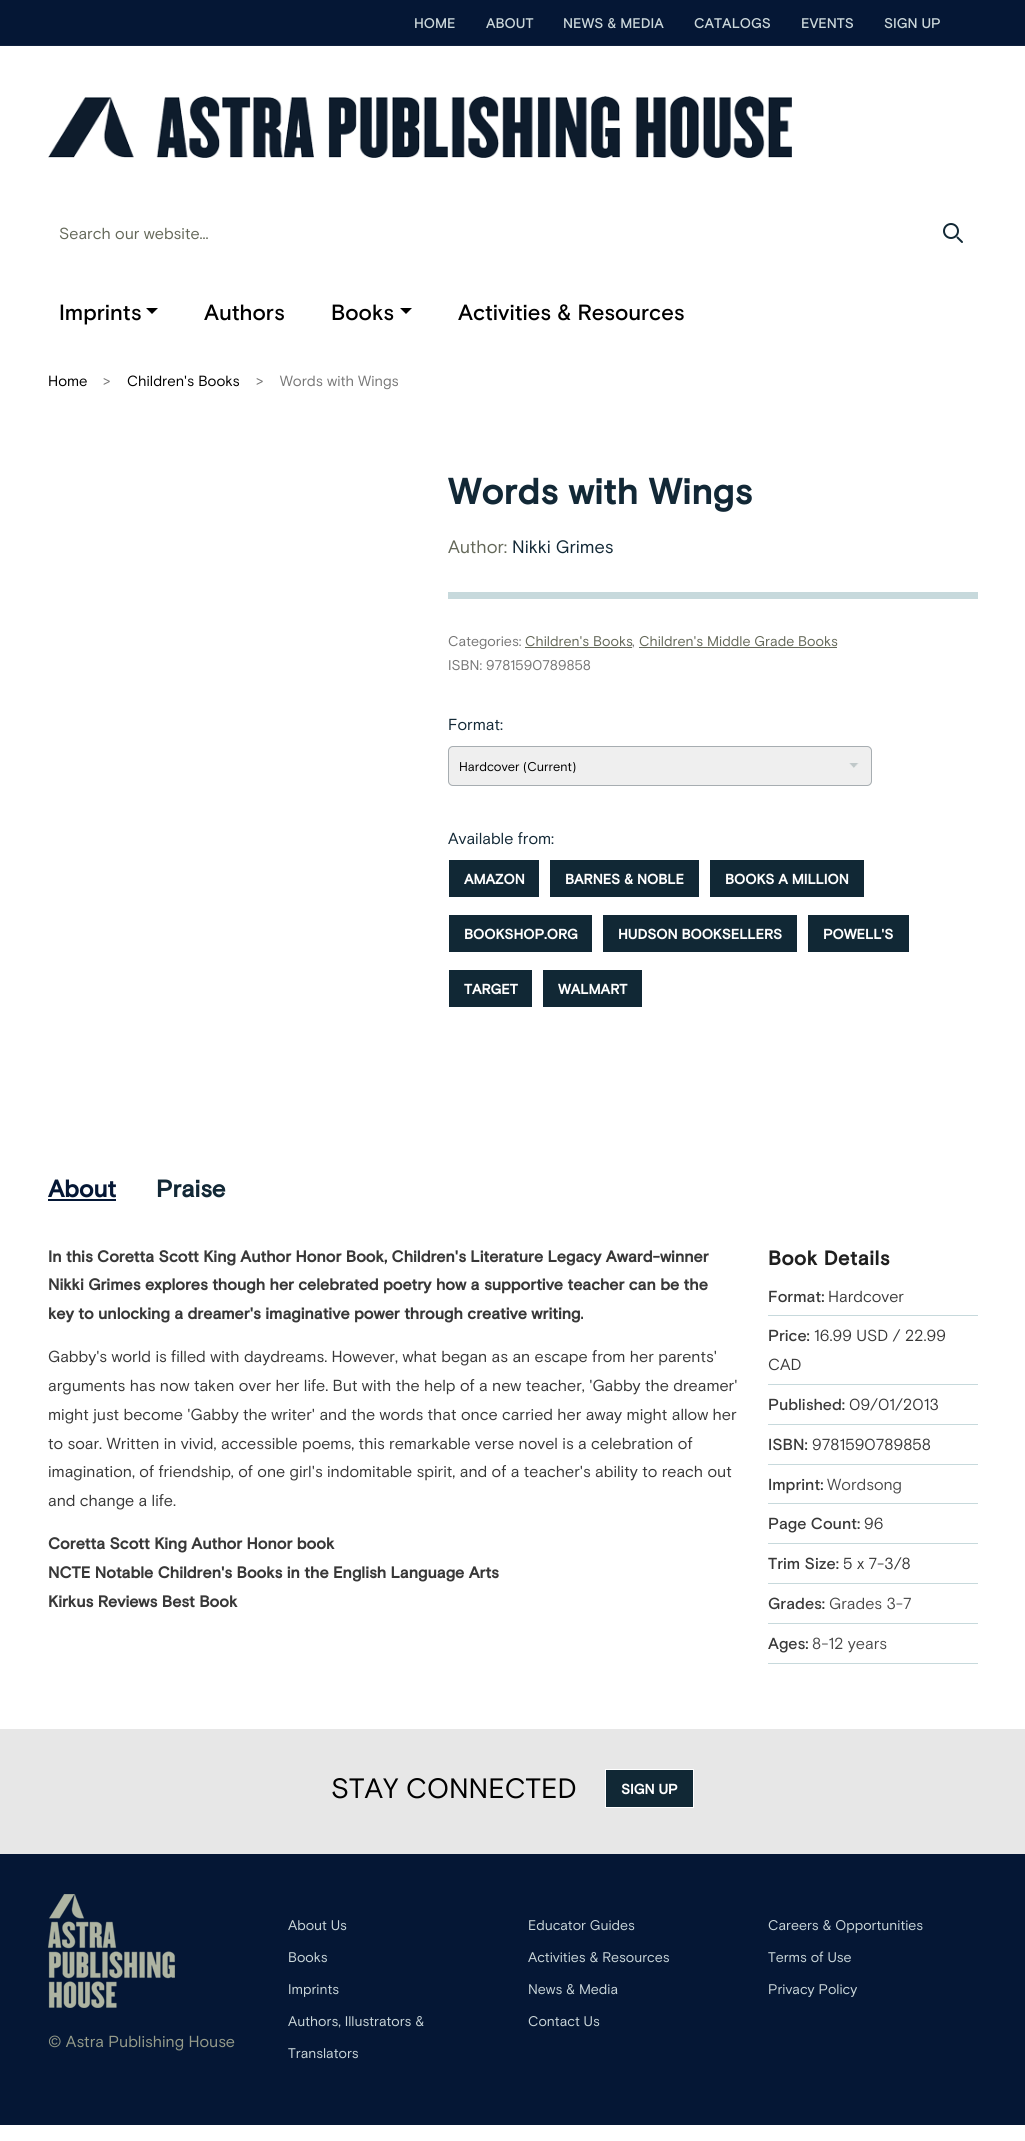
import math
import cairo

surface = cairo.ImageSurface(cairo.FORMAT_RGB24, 1025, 2141)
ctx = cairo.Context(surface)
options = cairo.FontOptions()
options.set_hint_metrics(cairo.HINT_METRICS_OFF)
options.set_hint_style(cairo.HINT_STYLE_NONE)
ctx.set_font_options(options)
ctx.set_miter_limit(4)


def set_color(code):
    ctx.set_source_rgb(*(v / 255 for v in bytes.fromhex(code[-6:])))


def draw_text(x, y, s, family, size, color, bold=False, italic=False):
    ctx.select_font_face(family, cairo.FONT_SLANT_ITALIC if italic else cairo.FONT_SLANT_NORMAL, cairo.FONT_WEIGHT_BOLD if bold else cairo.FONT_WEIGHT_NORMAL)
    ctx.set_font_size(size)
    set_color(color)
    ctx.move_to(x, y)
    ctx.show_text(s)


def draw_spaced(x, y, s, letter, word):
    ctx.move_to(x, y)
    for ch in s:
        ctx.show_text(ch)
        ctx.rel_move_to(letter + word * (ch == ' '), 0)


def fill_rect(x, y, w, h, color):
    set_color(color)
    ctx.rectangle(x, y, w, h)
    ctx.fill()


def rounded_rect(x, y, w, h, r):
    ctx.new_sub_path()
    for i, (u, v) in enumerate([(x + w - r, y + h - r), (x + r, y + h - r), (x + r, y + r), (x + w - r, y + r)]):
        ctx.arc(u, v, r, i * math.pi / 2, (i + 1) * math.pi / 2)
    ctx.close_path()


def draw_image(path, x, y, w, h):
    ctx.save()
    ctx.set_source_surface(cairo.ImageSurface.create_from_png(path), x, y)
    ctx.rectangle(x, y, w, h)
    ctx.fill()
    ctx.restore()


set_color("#ffffff")
ctx.paint()
fill_rect(0, 0, 1025, 45, "#051735")
fill_rect(0, 45, 1025, 1, "#10213e")
draw_text(414, 28, "HOME", "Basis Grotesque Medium", 14, "#cbd7da")
draw_text(486, 28, "ABOUT", "Basis Grotesque Medium", 14, "#cbd7da")
draw_text(563, 28, "NEWS & MEDIA", "Basis Grotesque Medium", 14, "#cbd7da")
draw_text(694, 28, "CATALOGS", "Basis Grotesque Medium", 14, "#cbd7da")
draw_text(801, 28, "EVENTS", "Basis Grotesque Medium", 14, "#cbd7da")
draw_text(884, 28, "SIGN UP", "Basis Grotesque Medium", 14, "#cbd7da")
draw_image("assets/img1.png", 48, 96, 744, 62)
draw_text(59, 239, "Search our website...", "Basis Grotesque", 16, "#646859")
ctx.new_path()
ctx.arc(951, 231, 7, 0, 2 * math.pi)
set_color("#112835")
ctx.stroke()
ctx.new_path()
ctx.move_to(962, 242)
ctx.line_to(957.5, 237.5)
ctx.set_line_cap(cairo.LINE_CAP_ROUND)
ctx.set_line_join(cairo.LINE_JOIN_ROUND)
ctx.stroke()
draw_text(59, 320, "Imprints", "Basis Grotesque Medium", 22, "#000000")
ctx.new_path()
ctx.move_to(146, 308)
ctx.line_to(158, 308)
ctx.line_to(152, 314)
ctx.close_path()
ctx.fill()
draw_text(204, 320, "Authors", "Basis Grotesque Medium", 22, "#000000")
draw_text(331, 320, "Books", "Basis Grotesque Medium", 22, "#000000")
ctx.new_path()
ctx.move_to(400, 308)
ctx.line_to(412, 308)
ctx.line_to(406, 314)
ctx.close_path()
ctx.fill()
draw_text(458, 320, "Activities & Resources", "Basis Grotesque Medium", 22, "#000000")
draw_text(48, 386, "Home", "Basis Grotesque", 14.75, "#000000")
draw_text(103, 386, ">", "Basis Grotesque", 14.75, "#767676")
draw_text(127, 386, "Children's Books", "Basis Grotesque", 14.75, "#000000")
draw_text(256, 386, ">    Words with Wings", "Basis Grotesque", 14.75, "#767676")
ctx.select_font_face("Basis Grotesque", cairo.FONT_SLANT_NORMAL, cairo.FONT_WEIGHT_BOLD)
ctx.set_font_size(36)
set_color("#122836")
draw_spaced(448, 504, "Words with Wings", 0.5, 0)
draw_text(448, 553, "Author:", "Basis Grotesque", 18, "#646859")
draw_text(512, 553, "Nikki Grimes", "Basis Grotesque", 18, "#122836")
fill_rect(448, 592, 530, 7, "#c7d9dc")
draw_text(448, 646, "Categories:", "Basis Grotesque", 14.1, "#767676")
draw_text(525, 646, "Children's Books", "Basis Grotesque", 14.1, "#646859")
draw_text(632, 646, ",", "Basis Grotesque", 14.1, "#767676")
fill_rect(525, 647, 107, 1, "#646859")
fill_rect(639, 647, 198, 1, "#646859")
draw_text(639, 646, "Children's Middle Grade Books", "Basis Grotesque", 14.1, "#646859")
draw_text(448, 670, "ISBN: 9781590789858", "Basis Grotesque", 14.1, "#767676")
draw_text(448, 730, "Format:", "Basis Grotesque", 16, "#122836")
set_color("#efefef")
rounded_rect(448, 746, 424, 40, 5)
ctx.fill()
draw_image("assets/img2.png", 849, 763, 10, 5)
rounded_rect(448.5, 746.5, 423, 39, 4.5)
set_color("#a7adb1")
ctx.set_line_width(1)
ctx.set_line_cap(cairo.LINE_CAP_BUTT)
ctx.set_line_join(cairo.LINE_JOIN_MITER)
ctx.stroke()
draw_text(459, 771, "Hardcover (Current)", "Basis Grotesque", 12.75, "#000000")
draw_text(448, 844, "Available from:", "Basis Grotesque", 16, "#122836")
fill_rect(449, 860, 90, 37, "#112835")
draw_text(464, 884, "AMAZON", "Basis Grotesque", 14, "#ffffff", bold=True)
fill_rect(550, 860, 149, 37, "#112835")
draw_text(565, 884, "BARNES & NOBLE", "Basis Grotesque", 14, "#ffffff", bold=True)
fill_rect(710, 860, 154, 37, "#112835")
draw_text(725, 884, "BOOKS A MILLION", "Basis Grotesque", 14, "#ffffff", bold=True)
fill_rect(449, 915, 143, 37, "#112835")
draw_text(464, 939, "BOOKSHOP.ORG", "Basis Grotesque", 14, "#ffffff", bold=True)
fill_rect(603, 915, 194, 37, "#112835")
draw_text(618, 939, "HUDSON BOOKSELLERS", "Basis Grotesque", 14, "#ffffff", bold=True)
fill_rect(808, 915, 101, 37, "#112835")
draw_text(823, 939, "POWELL'S", "Basis Grotesque", 14, "#ffffff", bold=True)
fill_rect(449, 970, 83, 37, "#112835")
draw_text(464, 994, "TARGET", "Basis Grotesque", 14, "#ffffff", bold=True)
fill_rect(543, 970, 99, 37, "#112835")
draw_text(558, 994, "WALMART", "Basis Grotesque", 14, "#ffffff", bold=True)
draw_text(48, 1197, "About", "Basis Grotesque", 24, "#051735", bold=True)
fill_rect(48, 1199, 68, 2, "#051735")
draw_text(156, 1197, "Praise", "Basis Grotesque", 24, "#122836", bold=True)
draw_text(48, 1262, "In this Coretta Scott King Author Honor Book, Children's Literature Legacy Award-winner", "Basis Grotesque", 16, "#383838", bold=True)
draw_text(48, 1290, "Nikki Grimes explores though her celebrated poetry how a supportive teacher can be the", "Basis Grotesque", 16, "#383838", bold=True)
draw_text(48, 1319, "key to unlocking a dreamer's imaginative power through creative writing.", "Basis Grotesque", 16, "#383838", bold=True)
draw_text(48, 1362, "Gabby's world is filled with daydreams. However, what began as an escape from her parents'", "Basis Grotesque", 16, "#383838")
draw_text(48, 1391, "arguments has now taken over her life. But with the help of a new teacher, 'Gabby the dreamer'", "Basis Grotesque", 16, "#383838")
draw_text(48, 1420, "might just become 'Gabby the writer' and the words that once carried her away might allow her", "Basis Grotesque", 16, "#383838")
draw_text(48, 1449, "to soar. Written in vivid, accessible poems, this remarkable verse novel is a celebration of", "Basis Grotesque", 16, "#383838")
draw_text(48, 1477, "imagination, of friendship, of one girl's indomitable spirit, and of a teacher's ability to reach out", "Basis Grotesque", 16, "#383838")
draw_text(48, 1506, "and change a life.", "Basis Grotesque", 16, "#383838")
draw_text(48, 1549, "Coretta Scott King Author Honor book", "Basis Grotesque", 16, "#383838", bold=True)
draw_text(48, 1578, "NCTE Notable Children's Books in the English Language Arts", "Basis Grotesque", 16, "#383838", bold=True)
draw_text(48, 1607, "Kirkus Reviews Best Book", "Basis Grotesque", 16, "#383838", bold=True)
ctx.set_font_size(20)
set_color("#1f1f1f")
draw_spaced(768, 1265, "Book Details", 0.5, 0)
fill_rect(768, 1315, 210, 1, "#c7d9dc")
draw_text(768, 1302, "Format:", "Basis Grotesque Medium", 16, "#383838")
draw_text(828, 1302, "Hardcover", "Basis Grotesque Light", 16, "#383838")
fill_rect(768, 1384, 210, 1, "#c7d9dc")
draw_text(768, 1341, "Price:", "Basis Grotesque Medium", 16, "#383838")
draw_text(814, 1341, "16.99 USD / 22.99", "Basis Grotesque Light", 16, "#383838")
draw_text(768, 1370, "CAD", "Basis Grotesque Light", 16, "#383838")
fill_rect(768, 1424, 210, 1, "#c7d9dc")
draw_text(768, 1410, "Published:", "Basis Grotesque Medium", 16, "#383838")
draw_text(849, 1410, "09/01/2013", "Basis Grotesque Light", 16, "#383838")
fill_rect(768, 1464, 210, 1, "#c7d9dc")
draw_text(768, 1450, "ISBN:", "Basis Grotesque Medium", 16, "#383838")
draw_text(812, 1450, "9781590789858", "Basis Grotesque Light", 16, "#383838")
fill_rect(768, 1503, 210, 1, "#c7d9dc")
draw_text(768, 1490, "Imprint:", "Basis Grotesque Medium", 16, "#383838")
draw_text(827, 1490, "Wordsong", "Basis Grotesque Light", 16, "#484848")
fill_rect(768, 1543, 210, 1, "#c7d9dc")
draw_text(768, 1529, "Page Count:", "Basis Grotesque Medium", 16, "#383838")
draw_text(864, 1529, "96", "Basis Grotesque Light", 16, "#383838")
fill_rect(768, 1583, 210, 1, "#c7d9dc")
draw_text(768, 1569, "Trim Size:", "Basis Grotesque Medium", 16, "#383838")
draw_text(843, 1569, "5 x 7-3/8", "Basis Grotesque Light", 16, "#383838")
fill_rect(768, 1623, 210, 1, "#c7d9dc")
draw_text(768, 1609, "Grades:", "Basis Grotesque Medium", 16, "#383838")
draw_text(829, 1609, "Grades 3-7", "Basis Grotesque Light", 16, "#484848")
fill_rect(768, 1663, 210, 1, "#c7d9dc")
draw_text(768, 1649, "Ages:", "Basis Grotesque Medium", 16, "#383838")
draw_text(812, 1649, "8-12 years", "Basis Grotesque Light", 16, "#484848")
fill_rect(0, 1729, 1025, 125, "#e7e7e7")
draw_text(331, 1798, "STAY CONNECTED", "Basis Grotesque", 28, "#000000")
set_color("#112835")
ctx.rectangle(605.5, 1769.5, 88, 38)
ctx.fill_preserve()
set_color("#ffffff")
ctx.stroke()
draw_text(621, 1794, "SIGN UP", "Basis Grotesque", 14, "#ffffff", bold=True)
fill_rect(0, 1854, 1025, 271, "#051735")
draw_text(288, 1930, "About Us", "Basis Grotesque", 14, "#cbd7da")
draw_text(288, 1962, "Books", "Basis Grotesque", 14, "#cbd7da")
draw_text(288, 1994, "Imprints", "Basis Grotesque", 14, "#cbd7da")
draw_text(288, 2026, "Authors, Illustrators &", "Basis Grotesque", 14, "#cbd7da")
draw_text(288, 2058, "Translators", "Basis Grotesque", 14, "#cbd7da")
draw_text(528, 1930, "Educator Guides", "Basis Grotesque", 14, "#cbd7da")
draw_text(528, 1962, "Activities & Resources", "Basis Grotesque", 14, "#cbd7da")
draw_text(528, 1994, "News & Media", "Basis Grotesque", 14, "#cbd7da")
draw_text(528, 2026, "Contact Us", "Basis Grotesque", 14, "#cbd7da")
draw_text(768, 1930, "Careers & Opportunities", "Basis Grotesque", 14, "#cbd7da")
draw_text(768, 1962, "Terms of Use", "Basis Grotesque", 14, "#cbd7da")
draw_text(768, 1994, "Privacy Policy", "Basis Grotesque", 14, "#cbd7da")
draw_image("assets/img3.png", 48, 1894, 127, 114)
draw_text(48, 2047, "© Astra Publishing House", "Basis Grotesque", 16, "#969c8a")
surface.write_to_png("output.png")
